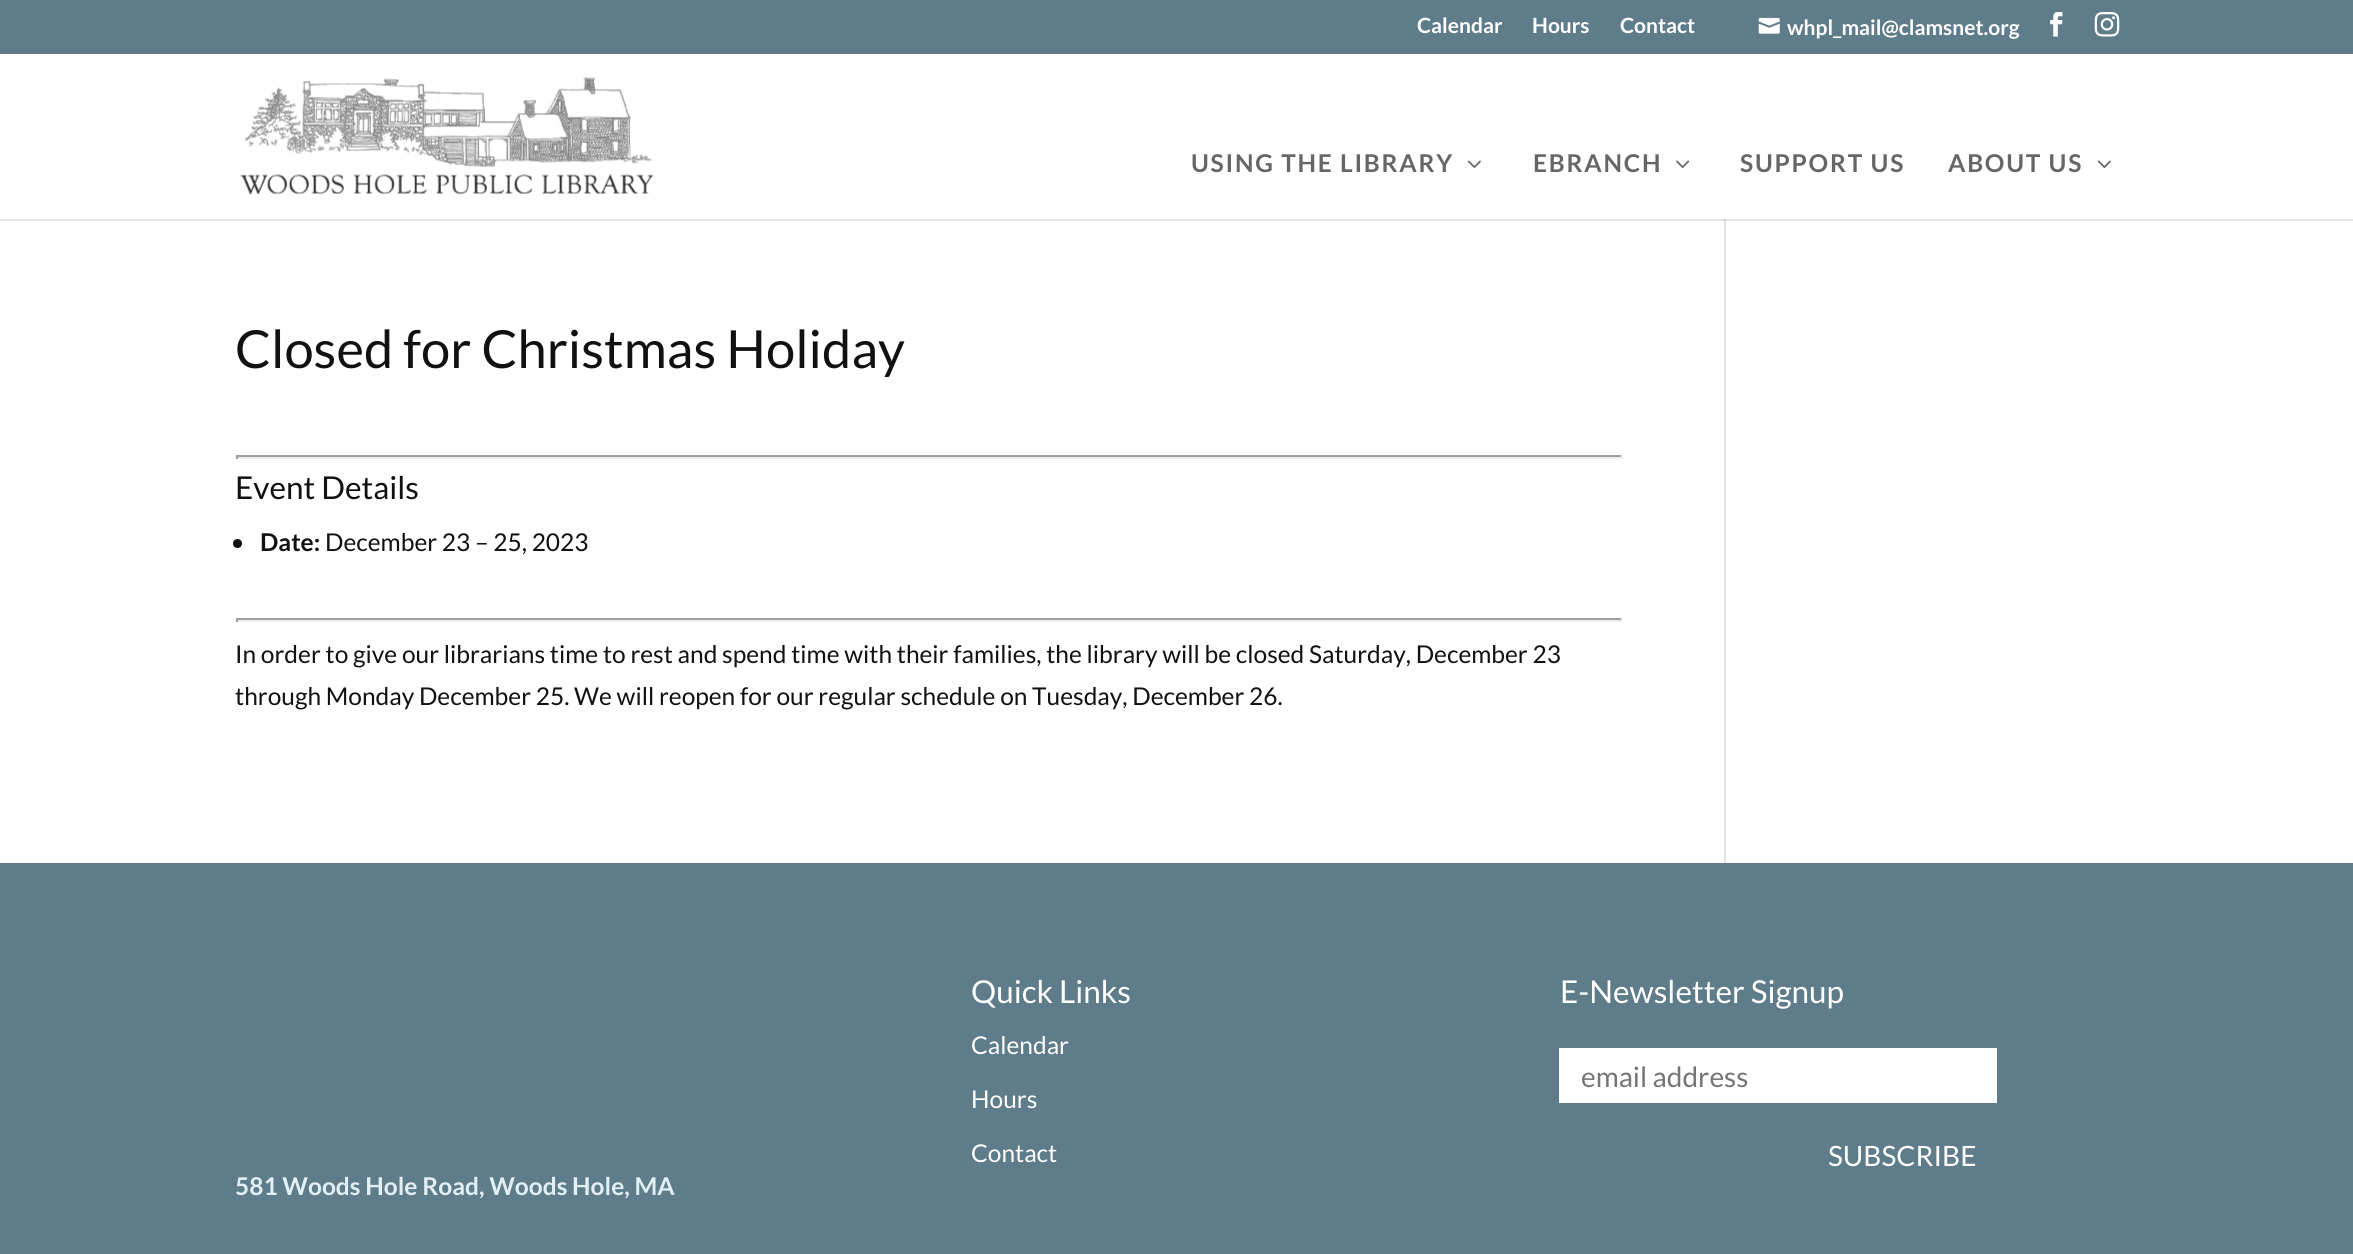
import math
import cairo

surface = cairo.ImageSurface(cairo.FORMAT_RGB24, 2353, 1254)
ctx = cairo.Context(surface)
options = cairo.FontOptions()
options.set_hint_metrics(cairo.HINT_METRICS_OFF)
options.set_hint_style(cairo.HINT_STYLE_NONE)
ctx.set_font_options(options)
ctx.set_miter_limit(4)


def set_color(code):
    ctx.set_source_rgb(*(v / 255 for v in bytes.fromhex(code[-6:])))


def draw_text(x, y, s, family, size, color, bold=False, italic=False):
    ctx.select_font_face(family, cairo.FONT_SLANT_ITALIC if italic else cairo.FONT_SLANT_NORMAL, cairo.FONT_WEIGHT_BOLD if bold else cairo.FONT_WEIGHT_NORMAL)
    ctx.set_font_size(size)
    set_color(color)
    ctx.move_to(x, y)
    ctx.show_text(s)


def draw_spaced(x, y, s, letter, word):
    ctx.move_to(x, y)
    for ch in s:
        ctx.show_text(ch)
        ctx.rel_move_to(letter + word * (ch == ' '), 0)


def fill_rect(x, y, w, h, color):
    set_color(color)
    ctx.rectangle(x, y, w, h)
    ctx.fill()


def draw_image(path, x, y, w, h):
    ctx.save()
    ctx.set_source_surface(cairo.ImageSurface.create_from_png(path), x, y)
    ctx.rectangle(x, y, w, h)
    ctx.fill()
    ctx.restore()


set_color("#ffffff")
ctx.paint()
fill_rect(0, 0, 2353, 54, "#5e7c89")
draw_text(1417, 33, "Calendar", "Lato", 21, "#ffffff", bold=True)
draw_text(1532, 33, "Hours", "Lato", 21, "#ffffff", bold=True)
draw_text(1620, 33, "Contact", "Lato", 21, "#ffffff", bold=True)
draw_image("assets/img1.png", 1758, 17, 22, 17)
draw_text(1787, 35, "whpl_mail@clamsnet.org", "Lato", 21, "#ffffff", bold=True)
draw_image("assets/img2.png", 2050, 12, 13, 25)
draw_image("assets/img3.png", 2094, 12, 26, 25)
fill_rect(1724, 219, 2, 644, "#e2e2e2")
ctx.set_source_rgba(0, 0, 0, 0.1)
ctx.new_path()
ctx.move_to(0, 219)
ctx.line_to(0, 221)
ctx.line_to(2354, 221)
ctx.line_to(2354, 56)
ctx.line_to(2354, 219)
ctx.close_path()
ctx.fill()
draw_image("assets/img4.png", 240, 77, 414, 118)
ctx.set_font_size(24.5)
set_color("#666666")
draw_spaced(1191, 172, "USING THE LIBRARY", 1.75, 0)
draw_image("assets/img5.png", 1467, 160, 14, 8)
draw_spaced(1533, 172, "EBRANCH", 1.75, 0)
draw_image("assets/img6.png", 1676, 160, 14, 8)
draw_spaced(1740, 172, "SUPPORT US", 1.75, 0)
draw_spaced(1948, 172, "ABOUT US", 1.75, 0)
draw_image("assets/img5.png", 2097, 160, 14, 8)
draw_text(235, 368, "Closed for Christmas Holiday", "Lato", 52.5, "#111111")
fill_rect(236, 455, 1386, 2, "#9f9f9f")
fill_rect(1621, 455, 2, 4, "#eeeeee")
fill_rect(236, 457, 1386, 2, "#eeeeee")
fill_rect(236, 455, 2, 4, "#9f9f9f")
draw_text(235, 499, "Event Details", "Lato", 31.5, "#111111")
ctx.new_path()
ctx.arc(237.5, 543.5, 4.5, 0, 2 * math.pi)
ctx.fill()
draw_text(260, 551, "Date:", "Lato", 24.5, "#111111", bold=True)
draw_text(325, 551, "December 23 – 25, 2023", "Lato", 24.5, "#111111")
fill_rect(236, 618, 1386, 2, "#9f9f9f")
fill_rect(1621, 618, 2, 4, "#eeeeee")
fill_rect(236, 620, 1386, 2, "#eeeeee")
fill_rect(236, 618, 2, 4, "#9f9f9f")
draw_text(235, 663, "In order to give our librarians time to rest and spend time with their families, the library will be closed Saturday, December 23", "Lato", 24.5, "#111111")
draw_text(235, 705, "through Monday December 25. We will reopen for our regular schedule on Tuesday, December 26.", "Lato", 24.5, "#111111")
fill_rect(0, 863, 2353, 391, "#5e7c89")
draw_text(971, 1003, "Quick Links", "Lato", 31.5, "#ffffff")
draw_text(971, 1054, "Calendar", "Lato", 24.5, "#ffffff")
draw_text(971, 1108, "Hours", "Lato", 24.5, "#ffffff")
draw_text(971, 1162, "Contact", "Lato", 24.5, "#ffffff")
draw_text(1560, 1003, "E-Newsletter Signup", "Lato", 31.5, "#ffffff")
fill_rect(1559, 1048, 438, 55, "#ffffff")
draw_text(1581, 1087, "email address", "Lato", 28, "#757575")
draw_text(1828, 1166, "SUBSCRIBE", "Lato", 28, "#ffffff")
draw_text(235, 1195, "581 Woods Hole Road, Woods Hole, MA", "Lato", 24.5, "#e2eff4", bold=True)
surface.write_to_png("output.png")
